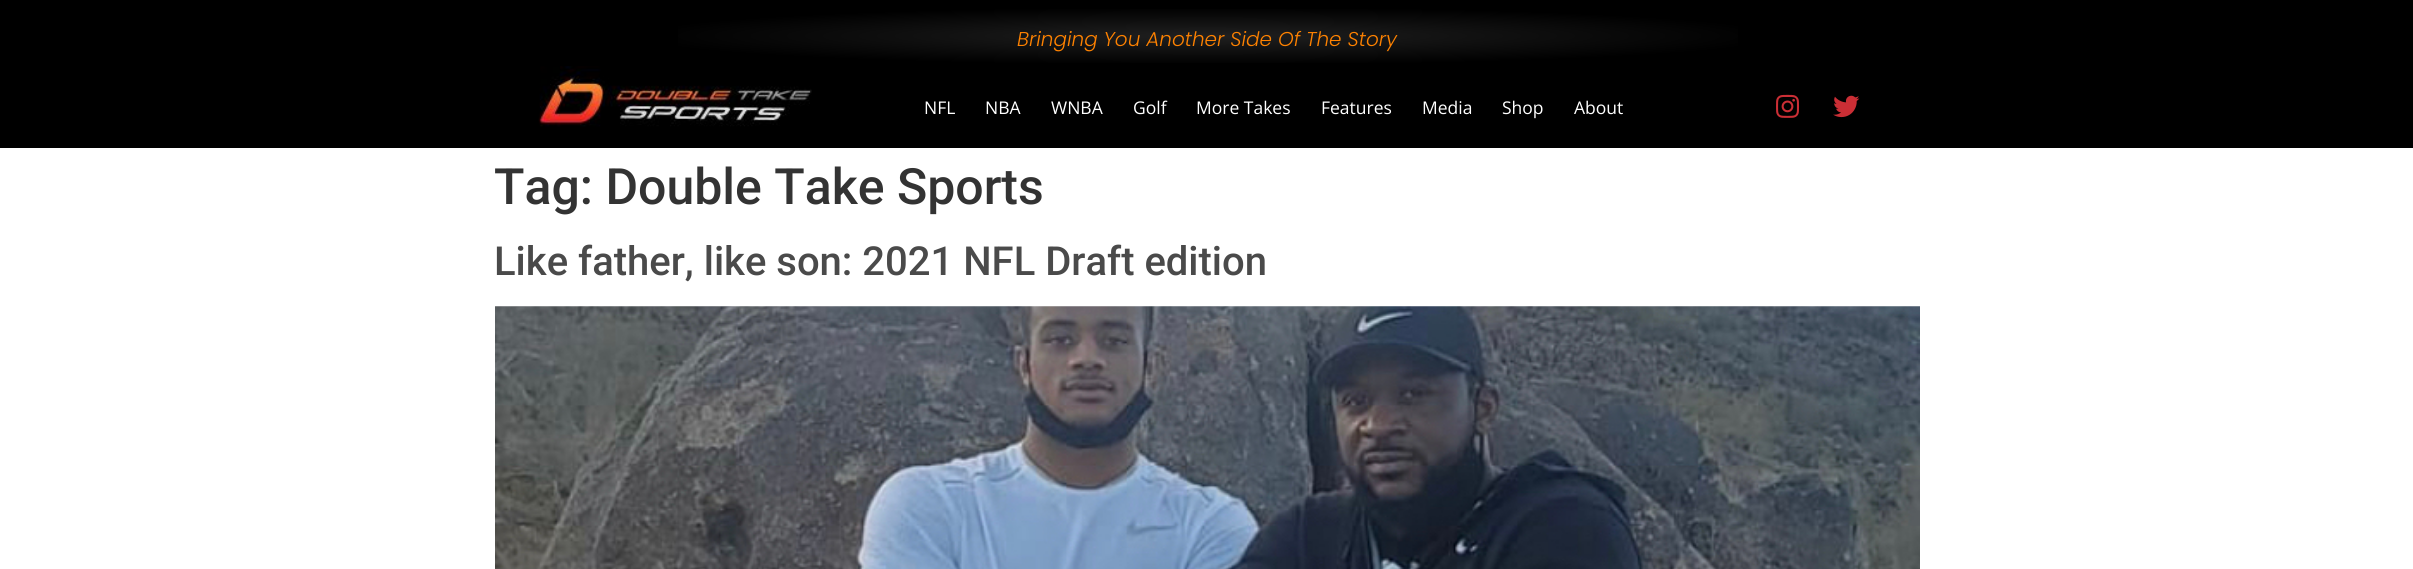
import math
import cairo

surface = cairo.ImageSurface(cairo.FORMAT_RGB24, 2413, 569)
ctx = cairo.Context(surface)
options = cairo.FontOptions()
options.set_hint_metrics(cairo.HINT_METRICS_OFF)
options.set_hint_style(cairo.HINT_STYLE_NONE)
ctx.set_font_options(options)
ctx.set_miter_limit(4)


def set_color(code):
    ctx.set_source_rgb(*(v / 255 for v in bytes.fromhex(code[-6:])))


def draw_text(x, y, s, family, size, color, bold=False, italic=False):
    ctx.select_font_face(family, cairo.FONT_SLANT_ITALIC if italic else cairo.FONT_SLANT_NORMAL, cairo.FONT_WEIGHT_BOLD if bold else cairo.FONT_WEIGHT_NORMAL)
    ctx.set_font_size(size)
    set_color(color)
    ctx.move_to(x, y)
    ctx.show_text(s)


def fill_rect(x, y, w, h, color):
    set_color(color)
    ctx.rectangle(x, y, w, h)
    ctx.fill()


def draw_image(path, x, y, w, h):
    ctx.save()
    ctx.set_source_surface(cairo.ImageSurface.create_from_png(path), x, y)
    ctx.rectangle(x, y, w, h)
    ctx.fill()
    ctx.restore()


set_color("#ffffff")
ctx.paint()
fill_rect(0, 0, 2413, 148, "#000000")
gradient = cairo.RadialGradient(0, 0, 0, 0, 0, 1)
gradient.set_matrix(cairo.Matrix(1 / 1008, 0, 0, 1 / 51, -1 * 1208 / 1008, -1 * 36 / 51))
gradient.add_color_stop_rgba(0, 0.125, 0.125, 0.125, 1)
gradient.add_color_stop_rgba(0.57, 0, 0, 0, 1)
ctx.set_source(gradient)
ctx.rectangle(678, 9, 1060, 54)
ctx.fill()
draw_text(1017, 46, "Bringing You Another Side Of The Story", "Poppins Light", 20, "#ff8200", italic=True)
draw_image("assets/img1.png", 538, 66, 274, 61)
draw_text(924, 114, "NFL", "Open Sans", 17.5, "#ffffff")
draw_text(985, 114, "NBA", "Open Sans", 17.5, "#ffffff")
draw_text(1051, 114, "WNBA", "Open Sans", 17.5, "#ffffff")
draw_text(1133, 114, "Golf", "Open Sans", 17.5, "#ffffff")
draw_text(1196, 114, "More Takes", "Open Sans", 17.5, "#ffffff")
draw_text(1321, 114, "Features", "Open Sans", 17.5, "#ffffff")
draw_text(1422, 114, "Media", "Open Sans", 17.5, "#ffffff")
draw_text(1502, 114, "Shop", "Open Sans", 17.5, "#ffffff")
draw_text(1574, 114, "About", "Open Sans", 17.5, "#ffffff")
draw_image("assets/img2.png", 1776, 94, 24, 24)
draw_image("assets/img3.png", 1833, 95, 27, 23)
draw_text(494, 204, "Tag: Double Take Sports", "Roboto Medium", 50, "#333333")
draw_text(494, 275, "Like father, like son: 2021 NFL Draft edition", "Roboto Medium", 40, "#4a4a4a")
draw_image("assets/img4.png", 495, 306, 1425, 263)
surface.write_to_png("output.png")
